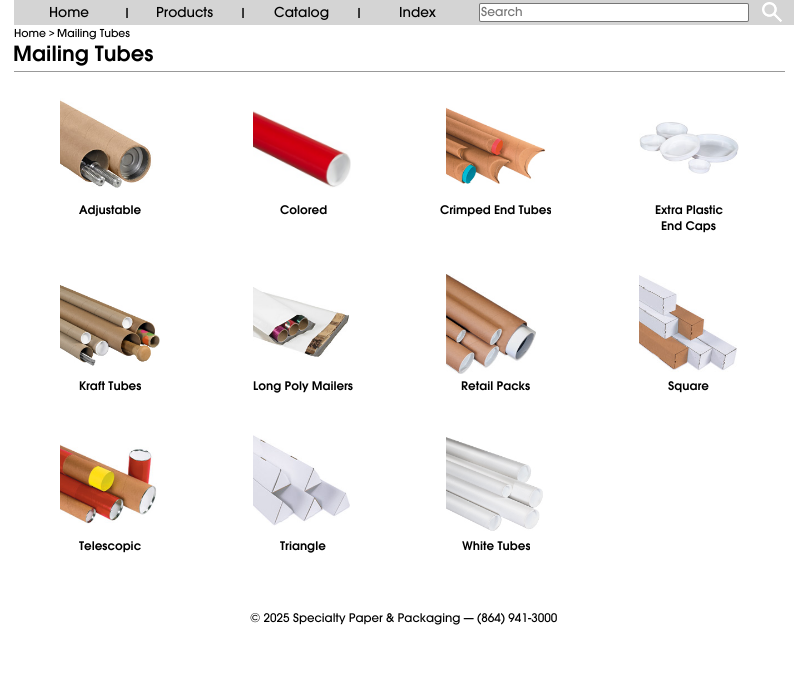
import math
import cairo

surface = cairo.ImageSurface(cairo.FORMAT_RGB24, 808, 680)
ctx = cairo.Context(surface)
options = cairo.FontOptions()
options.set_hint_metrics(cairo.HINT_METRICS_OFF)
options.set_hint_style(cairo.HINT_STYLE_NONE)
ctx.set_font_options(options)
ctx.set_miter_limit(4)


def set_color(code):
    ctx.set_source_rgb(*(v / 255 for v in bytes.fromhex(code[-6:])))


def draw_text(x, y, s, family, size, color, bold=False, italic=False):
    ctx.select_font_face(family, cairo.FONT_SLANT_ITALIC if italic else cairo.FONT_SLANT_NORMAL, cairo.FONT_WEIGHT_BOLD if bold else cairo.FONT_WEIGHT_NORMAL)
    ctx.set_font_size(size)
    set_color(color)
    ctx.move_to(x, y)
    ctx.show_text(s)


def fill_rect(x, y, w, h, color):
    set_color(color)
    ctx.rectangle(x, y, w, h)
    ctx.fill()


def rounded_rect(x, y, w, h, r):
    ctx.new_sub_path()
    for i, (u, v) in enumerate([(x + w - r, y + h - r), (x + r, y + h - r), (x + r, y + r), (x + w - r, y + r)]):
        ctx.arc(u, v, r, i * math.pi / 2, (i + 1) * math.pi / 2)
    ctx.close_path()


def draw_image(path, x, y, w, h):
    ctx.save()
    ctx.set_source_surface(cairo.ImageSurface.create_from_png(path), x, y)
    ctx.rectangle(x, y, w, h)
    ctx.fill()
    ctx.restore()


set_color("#ffffff")
ctx.paint()
fill_rect(14, 0, 780, 25, "#d4d4d4")
draw_text(49, 17, "Home", "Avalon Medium", 15, "#000000")
draw_text(124, 16, "|", "Avalon SemiBold", 12, "#000000")
draw_text(156, 17, "Products", "Avalon Medium", 15, "#000000")
draw_text(240, 16, "|", "Avalon SemiBold", 12, "#000000")
draw_text(274, 17, "Catalog", "Avalon Medium", 15, "#000000")
draw_text(356, 16, "|", "Avalon SemiBold", 12, "#000000")
draw_text(399, 17, "Index", "Avalon Medium", 15, "#000000")
set_color("#ffffff")
rounded_rect(479.5, 3.5, 269, 18, 1.5)
ctx.fill_preserve()
set_color("#767676")
ctx.set_line_width(1)
ctx.stroke()
draw_text(481, 16, "Search", "Avalon Medium", 13.5, "#757575")
draw_image("assets/img1.png", 762, 2, 20, 20)
draw_text(14, 37, "Home", "Avalon Medium", 12, "#000000")
draw_text(49, 37, ">", "Avalon Medium", 11, "#000000")
draw_text(57, 37, "Mailing Tubes", "Avalon Medium", 12, "#000000")
draw_text(13, 61, "Mailing Tubes", "Avalon SemiBold", 23, "#000000")
fill_rect(14, 71, 771, 1, "#999999")
draw_image("assets/img2.png", 60, 98, 93, 90)
draw_text(79, 214, "Adjustable", "Avalon SemiBold", 13, "#000000")
draw_image("assets/img3.png", 253, 110, 98, 78)
draw_text(280, 214, "Colored", "Avalon SemiBold", 13, "#000000")
draw_image("assets/img4.png", 446, 107, 100, 77)
draw_text(440, 214, "Crimped End Tubes", "Avalon SemiBold", 13, "#000000")
draw_image("assets/img5.png", 639, 122, 100, 52)
draw_text(655, 214, "Extra Plastic", "Avalon SemiBold", 13, "#000000")
draw_text(661, 230, "End Caps", "Avalon SemiBold", 13, "#000000")
draw_image("assets/img6.png", 60, 285, 100, 81)
draw_text(79, 390, "Kraft Tubes", "Avalon SemiBold", 13, "#000000")
draw_image("assets/img7.png", 253, 287, 97, 70)
draw_text(253, 390, "Long Poly Mailers", "Avalon SemiBold", 13, "#000000")
draw_image("assets/img8.png", 446, 274, 90, 100)
draw_text(461, 390, "Retail Packs", "Avalon SemiBold", 13, "#000000")
draw_image("assets/img9.png", 639, 275, 98, 97)
draw_text(668, 390, "Square", "Avalon SemiBold", 13, "#000000")
draw_image("assets/img10.png", 60, 444, 97, 80)
draw_text(79, 550, "Telescopic", "Avalon SemiBold", 13, "#000000")
draw_image("assets/img11.png", 253, 435, 97, 91)
draw_text(280, 550, "Triangle", "Avalon SemiBold", 13, "#000000")
draw_image("assets/img12.png", 446, 437, 97, 94)
draw_text(462, 550, "White Tubes", "Avalon SemiBold", 13, "#000000")
draw_text(250, 622, "© 2025 Specialty Paper & Packaging — (864) 941-3000", "Avalon Medium", 13, "#000000")
surface.write_to_png("output.png")
